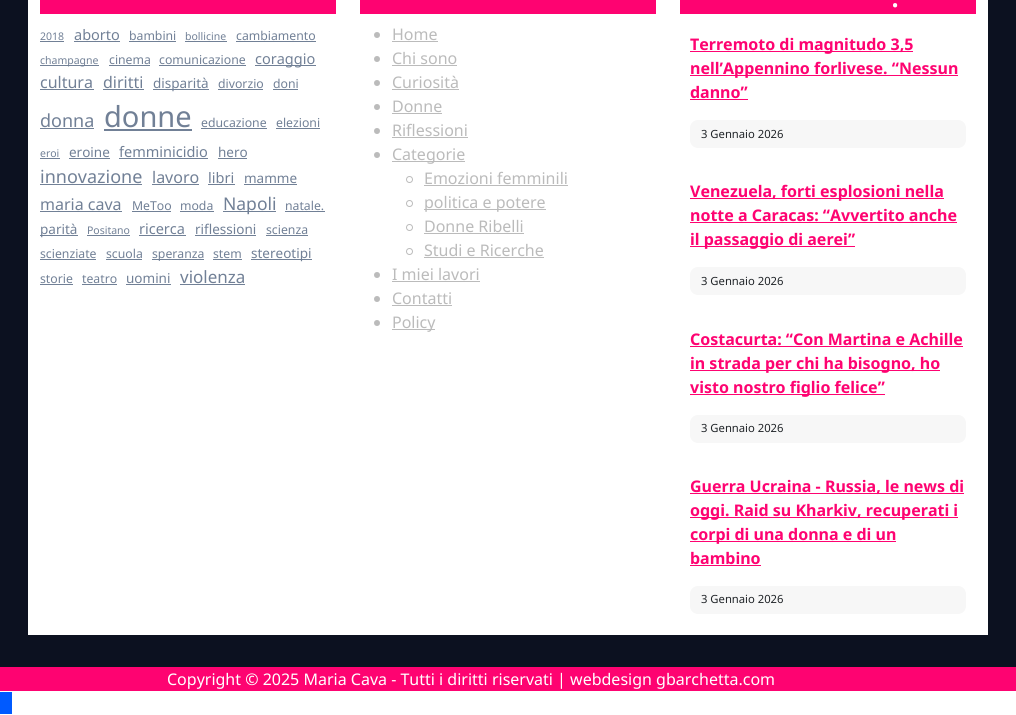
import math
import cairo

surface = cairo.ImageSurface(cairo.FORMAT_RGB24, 1016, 715)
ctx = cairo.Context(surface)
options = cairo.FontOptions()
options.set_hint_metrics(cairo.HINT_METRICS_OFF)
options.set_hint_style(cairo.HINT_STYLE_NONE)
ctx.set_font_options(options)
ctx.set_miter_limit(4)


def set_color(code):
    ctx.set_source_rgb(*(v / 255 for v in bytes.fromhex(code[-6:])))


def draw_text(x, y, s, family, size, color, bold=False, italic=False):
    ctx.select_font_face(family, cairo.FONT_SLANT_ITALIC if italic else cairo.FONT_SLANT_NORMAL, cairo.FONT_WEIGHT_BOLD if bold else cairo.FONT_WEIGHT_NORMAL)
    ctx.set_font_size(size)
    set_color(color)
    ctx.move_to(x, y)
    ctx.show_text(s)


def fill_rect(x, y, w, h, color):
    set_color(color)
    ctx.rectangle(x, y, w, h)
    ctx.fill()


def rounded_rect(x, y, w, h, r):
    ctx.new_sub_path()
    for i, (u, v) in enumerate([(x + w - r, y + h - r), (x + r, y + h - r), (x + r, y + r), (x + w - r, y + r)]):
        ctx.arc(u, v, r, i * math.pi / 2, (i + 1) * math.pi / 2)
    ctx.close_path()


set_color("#ffffff")
ctx.paint()
fill_rect(0, 0, 1016, 667, "#0c1120")
fill_rect(28, 0, 960, 635, "#ffffff")
fill_rect(40, 0, 296, 14, "#fe0371")
draw_text(40, 40, "2018", "Noto Sans", 10.5, "#718096")
fill_rect(40, 41, 24, 1, "#718096")
draw_text(74, 40, "aborto", "Noto Sans", 14.5, "#718096")
fill_rect(74, 41, 46, 1, "#718096")
draw_text(129, 40, "bambini", "Noto Sans", 12.25, "#718096")
fill_rect(129, 41, 47, 1, "#718096")
draw_text(185, 40, "bollicine", "Noto Sans", 10.5, "#718096")
fill_rect(185, 41, 42, 1, "#718096")
draw_text(236, 40, "cambiamento", "Noto Sans", 12.25, "#718096")
fill_rect(236, 41, 80, 1, "#718096")
fill_rect(40, 65, 59, 1, "#718096")
draw_text(40, 64, "champagne", "Noto Sans", 10.5, "#718096")
draw_text(109, 64, "cinema", "Noto Sans", 12.25, "#718096")
fill_rect(109, 65, 41, 1, "#718096")
draw_text(159, 64, "comunicazione", "Noto Sans", 12.25, "#718096")
fill_rect(159, 65, 87, 1, "#718096")
fill_rect(255, 65, 61, 1, "#718096")
draw_text(255, 64, "coraggio", "Noto Sans", 14.5, "#718096")
draw_text(40, 88, "cultura", "Noto Sans", 16, "#718096")
fill_rect(40, 89, 54, 1, "#718096")
draw_text(103, 88, "diritti", "Noto Sans", 16, "#718096")
fill_rect(103, 89, 41, 1, "#718096")
fill_rect(153, 89, 56, 1, "#718096")
draw_text(153, 88, "disparità", "Noto Sans", 13.5, "#718096")
draw_text(218, 88, "divorzio", "Noto Sans", 12.25, "#718096")
fill_rect(218, 89, 45, 1, "#718096")
draw_text(273, 88, "doni", "Noto Sans", 12.25, "#718096")
fill_rect(273, 89, 25, 1, "#718096")
draw_text(40, 127, "donna", "Noto Sans", 18, "#718096")
fill_rect(40, 128, 54, 1, "#718096")
draw_text(104, 127, "donne", "Noto Sans", 29, "#718096")
fill_rect(104, 129, 88, 2, "#718096")
draw_text(201, 127, "educazione", "Noto Sans", 12.25, "#718096")
fill_rect(201, 128, 66, 1, "#718096")
draw_text(276, 127, "elezioni", "Noto Sans", 12.25, "#718096")
fill_rect(276, 128, 44, 1, "#718096")
draw_text(40, 157, "eroi", "Noto Sans", 10.5, "#718096")
fill_rect(40, 158, 20, 1, "#718096")
draw_text(69, 157, "eroine", "Noto Sans", 13.5, "#718096")
fill_rect(69, 158, 41, 1, "#718096")
draw_text(119, 157, "femminicidio", "Noto Sans", 14.5, "#718096")
fill_rect(119, 158, 89, 1, "#718096")
draw_text(218, 157, "hero", "Noto Sans", 13.5, "#718096")
fill_rect(218, 158, 29, 1, "#718096")
draw_text(40, 183, "innovazione", "Noto Sans", 18, "#718096")
fill_rect(40, 184, 102, 1, "#718096")
draw_text(152, 183, "lavoro", "Noto Sans", 16, "#718096")
fill_rect(152, 184, 47, 1, "#718096")
draw_text(208, 183, "libri", "Noto Sans", 14.5, "#718096")
fill_rect(208, 184, 27, 1, "#718096")
draw_text(244, 183, "mamme", "Noto Sans", 13.5, "#718096")
fill_rect(244, 184, 53, 1, "#718096")
draw_text(40, 210, "maria cava", "Noto Sans", 16, "#718096")
fill_rect(40, 211, 82, 1, "#718096")
draw_text(132, 210, "MeToo", "Noto Sans", 12.25, "#718096")
fill_rect(132, 211, 39, 1, "#718096")
draw_text(180, 210, "moda", "Noto Sans", 12.25, "#718096")
fill_rect(180, 211, 34, 1, "#718096")
fill_rect(223, 211, 53, 1, "#718096")
draw_text(223, 210, "Napoli", "Noto Sans", 17.5, "#718096")
draw_text(285, 210, "natale.", "Noto Sans", 12.25, "#718096")
fill_rect(285, 211, 40, 1, "#718096")
fill_rect(40, 235, 38, 1, "#718096")
draw_text(40, 234, "parità", "Noto Sans", 13.5, "#718096")
draw_text(87, 234, "Positano", "Noto Sans", 10.5, "#718096")
fill_rect(87, 235, 43, 1, "#718096")
draw_text(139, 234, "ricerca", "Noto Sans", 14.5, "#718096")
fill_rect(139, 235, 47, 1, "#718096")
draw_text(195, 234, "riflessioni", "Noto Sans", 13.5, "#718096")
fill_rect(195, 235, 61, 1, "#718096")
draw_text(266, 234, "scienza", "Noto Sans", 12.25, "#718096")
fill_rect(266, 235, 42, 1, "#718096")
draw_text(40, 258, "scienziate", "Noto Sans", 12.25, "#718096")
fill_rect(40, 259, 56, 1, "#718096")
draw_text(106, 258, "scuola", "Noto Sans", 12.25, "#718096")
fill_rect(106, 259, 36, 1, "#718096")
fill_rect(152, 259, 52, 1, "#718096")
draw_text(152, 258, "speranza", "Noto Sans", 12.25, "#718096")
draw_text(213, 258, "stem", "Noto Sans", 12.25, "#718096")
fill_rect(213, 259, 29, 1, "#718096")
fill_rect(251, 259, 61, 1, "#718096")
draw_text(251, 258, "stereotipi", "Noto Sans", 13.5, "#718096")
draw_text(40, 283, "storie", "Noto Sans", 12.25, "#718096")
fill_rect(40, 284, 33, 1, "#718096")
draw_text(82, 283, "teatro", "Noto Sans", 12.25, "#718096")
fill_rect(82, 284, 35, 1, "#718096")
draw_text(126, 283, "uomini", "Noto Sans", 13.5, "#718096")
fill_rect(126, 284, 45, 1, "#718096")
draw_text(180, 283, "violenza", "Noto Sans", 17, "#718096")
fill_rect(180, 284, 65, 1, "#718096")
fill_rect(360, 0, 296, 14, "#fe0371")
set_color("#bbbbbb")
ctx.new_path()
ctx.arc(377, 35, 3, 0, 2 * math.pi)
ctx.fill()
draw_text(392, 40, "Home", "Noto Sans", 16, "#bbbbbb")
fill_rect(392, 41, 46, 1, "#bbbbbb")
ctx.new_path()
ctx.arc(377, 59, 3, 0, 2 * math.pi)
ctx.fill()
draw_text(392, 64, "Chi sono", "Noto Sans", 16, "#bbbbbb")
fill_rect(392, 65, 65, 1, "#bbbbbb")
ctx.new_path()
ctx.arc(377, 83, 3, 0, 2 * math.pi)
ctx.fill()
draw_text(392, 88, "Curiosità", "Noto Sans", 16, "#bbbbbb")
fill_rect(392, 89, 67, 1, "#bbbbbb")
ctx.new_path()
ctx.arc(377, 107, 3, 0, 2 * math.pi)
ctx.fill()
draw_text(392, 112, "Donne", "Noto Sans", 16, "#bbbbbb")
fill_rect(392, 113, 50, 1, "#bbbbbb")
ctx.new_path()
ctx.arc(377, 131, 3, 0, 2 * math.pi)
ctx.fill()
draw_text(392, 136, "Riflessioni", "Noto Sans", 16, "#bbbbbb")
fill_rect(392, 137, 76, 1, "#bbbbbb")
ctx.new_path()
ctx.arc(377, 155, 3, 0, 2 * math.pi)
ctx.fill()
fill_rect(392, 161, 73, 1, "#bbbbbb")
draw_text(392, 160, "Categorie", "Noto Sans", 16, "#bbbbbb")
ctx.new_path()
ctx.arc(409.5, 179.5, 3, 0, 2 * math.pi)
ctx.set_line_width(1)
ctx.stroke()
draw_text(424, 184, "Emozioni femminili", "Noto Sans", 16, "#bbbbbb")
fill_rect(424, 185, 144, 1, "#bbbbbb")
ctx.new_path()
ctx.arc(409.5, 203.5, 3, 0, 2 * math.pi)
ctx.stroke()
fill_rect(424, 209, 122, 1, "#bbbbbb")
draw_text(424, 208, "politica e potere", "Noto Sans", 16, "#bbbbbb")
ctx.new_path()
ctx.arc(409.5, 227.5, 3, 0, 2 * math.pi)
ctx.stroke()
draw_text(424, 232, "Donne Ribelli", "Noto Sans", 16, "#bbbbbb")
fill_rect(424, 233, 100, 1, "#bbbbbb")
ctx.new_path()
ctx.arc(409.5, 251.5, 3, 0, 2 * math.pi)
ctx.stroke()
draw_text(424, 256, "Studi e Ricerche", "Noto Sans", 16, "#bbbbbb")
fill_rect(424, 257, 120, 1, "#bbbbbb")
ctx.new_path()
ctx.arc(377, 275, 3, 0, 2 * math.pi)
ctx.fill()
draw_text(392, 280, "I miei lavori", "Noto Sans", 16, "#bbbbbb")
fill_rect(392, 281, 88, 1, "#bbbbbb")
ctx.new_path()
ctx.arc(377, 299, 3, 0, 2 * math.pi)
ctx.fill()
draw_text(392, 304, "Contatti", "Noto Sans", 16, "#bbbbbb")
fill_rect(392, 305, 60, 1, "#bbbbbb")
ctx.new_path()
ctx.arc(377, 323, 3, 0, 2 * math.pi)
ctx.fill()
fill_rect(392, 329, 43, 1, "#bbbbbb")
draw_text(392, 328, "Policy", "Noto Sans", 16, "#bbbbbb")
fill_rect(680, 0, 296, 14, "#fe0371")
draw_text(891, 7, ".", "Noto Sans Medium", 30, "#ffffff")
fill_rect(690, 51, 223, 1, "#fe0371")
draw_text(690, 50, "Terremoto di magnitudo 3,5", "Noto Sans", 16, "#fe0371", bold=True)
fill_rect(690, 75, 268, 1, "#fe0371")
draw_text(690, 74, "nell’Appennino forlivese. “Nessun", "Noto Sans", 16, "#fe0371", bold=True)
draw_text(690, 98, "danno”", "Noto Sans", 16, "#fe0371", bold=True)
fill_rect(690, 99, 58, 1, "#fe0371")
set_color("#f7f7f7")
rounded_rect(690, 120, 276, 28, 8)
ctx.fill()
draw_text(701, 138, "3 Gennaio 2026", "Noto Sans", 11.25, "#212529")
fill_rect(690, 198, 254, 1, "#fe0371")
draw_text(690, 197, "Venezuela, forti esplosioni nella", "Noto Sans", 16, "#fe0371", bold=True)
draw_text(690, 221, "notte a Caracas: “Avvertito anche", "Noto Sans", 16, "#fe0371", bold=True)
fill_rect(690, 222, 267, 1, "#fe0371")
fill_rect(690, 246, 165, 1, "#fe0371")
draw_text(690, 245, "il passaggio di aerei”", "Noto Sans", 16, "#fe0371", bold=True)
set_color("#f7f7f7")
rounded_rect(690, 267, 276, 28, 8)
ctx.fill()
draw_text(701, 285, "3 Gennaio 2026", "Noto Sans", 11.25, "#212529")
draw_text(690, 345, "Costacurta: “Con Martina e Achille", "Noto Sans", 16, "#fe0371", bold=True)
fill_rect(690, 346, 273, 1, "#fe0371")
fill_rect(690, 370, 250, 1, "#fe0371")
draw_text(690, 369, "in strada per chi ha bisogno, ho", "Noto Sans", 16, "#fe0371", bold=True)
fill_rect(690, 394, 195, 1, "#fe0371")
draw_text(690, 393, "visto nostro figlio felice”", "Noto Sans", 16, "#fe0371", bold=True)
set_color("#f7f7f7")
rounded_rect(690, 415, 276, 28, 8)
ctx.fill()
draw_text(701, 432, "3 Gennaio 2026", "Noto Sans", 11.25, "#212529")
fill_rect(690, 493, 274, 1, "#fe0371")
draw_text(690, 492, "Guerra Ucraina - Russia, le news di", "Noto Sans", 16, "#fe0371", bold=True)
fill_rect(690, 517, 268, 1, "#fe0371")
draw_text(690, 516, "oggi. Raid su Kharkiv, recuperati i", "Noto Sans", 16, "#fe0371", bold=True)
fill_rect(690, 541, 206, 1, "#fe0371")
draw_text(690, 540, "corpi di una donna e di un", "Noto Sans", 16, "#fe0371", bold=True)
draw_text(690, 564, "bambino", "Noto Sans", 16, "#fe0371", bold=True)
fill_rect(690, 565, 71, 1, "#fe0371")
set_color("#f7f7f7")
rounded_rect(690, 586, 276, 28, 8)
ctx.fill()
draw_text(701, 603, "3 Gennaio 2026", "Noto Sans", 11.25, "#212529")
fill_rect(0, 667, 1016, 24, "#fe0371")
draw_text(167, 685, "Copyright © 2025 Maria Cava - Tutti i diritti riservati | webdesign gbarchetta.com", "Noto Sans", 16, "#ffffff")
fill_rect(0, 692, 12, 22, "#005aff")
surface.write_to_png("output.png")
